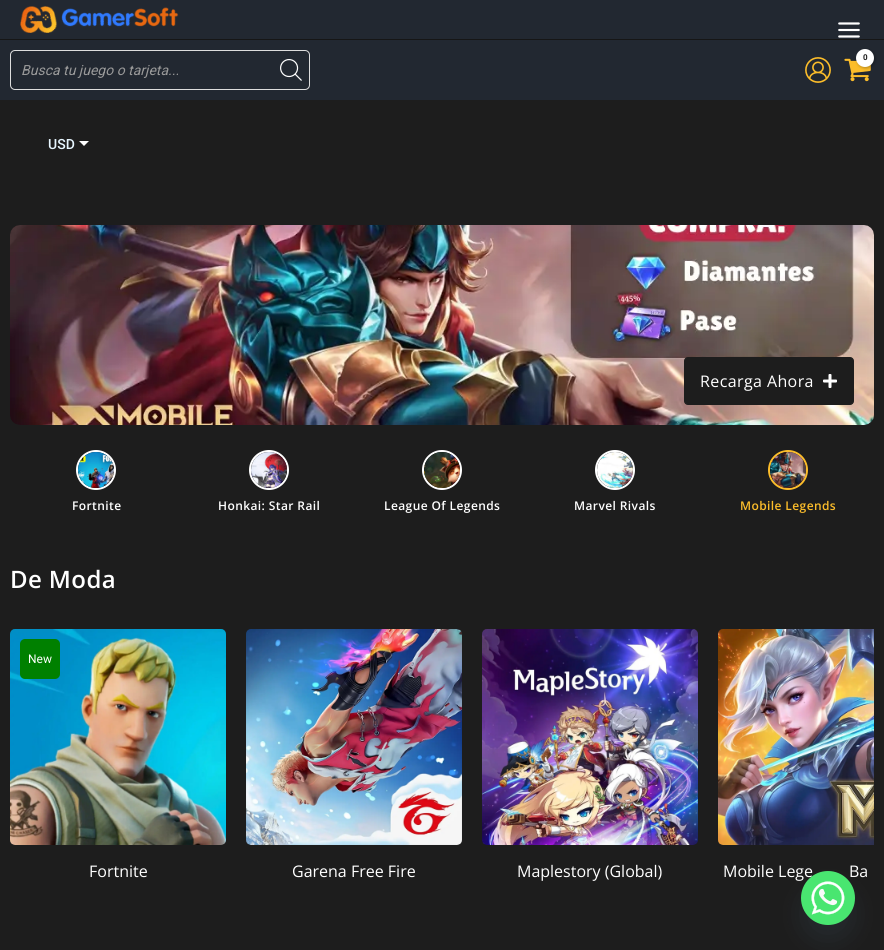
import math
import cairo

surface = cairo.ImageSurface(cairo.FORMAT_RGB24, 884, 950)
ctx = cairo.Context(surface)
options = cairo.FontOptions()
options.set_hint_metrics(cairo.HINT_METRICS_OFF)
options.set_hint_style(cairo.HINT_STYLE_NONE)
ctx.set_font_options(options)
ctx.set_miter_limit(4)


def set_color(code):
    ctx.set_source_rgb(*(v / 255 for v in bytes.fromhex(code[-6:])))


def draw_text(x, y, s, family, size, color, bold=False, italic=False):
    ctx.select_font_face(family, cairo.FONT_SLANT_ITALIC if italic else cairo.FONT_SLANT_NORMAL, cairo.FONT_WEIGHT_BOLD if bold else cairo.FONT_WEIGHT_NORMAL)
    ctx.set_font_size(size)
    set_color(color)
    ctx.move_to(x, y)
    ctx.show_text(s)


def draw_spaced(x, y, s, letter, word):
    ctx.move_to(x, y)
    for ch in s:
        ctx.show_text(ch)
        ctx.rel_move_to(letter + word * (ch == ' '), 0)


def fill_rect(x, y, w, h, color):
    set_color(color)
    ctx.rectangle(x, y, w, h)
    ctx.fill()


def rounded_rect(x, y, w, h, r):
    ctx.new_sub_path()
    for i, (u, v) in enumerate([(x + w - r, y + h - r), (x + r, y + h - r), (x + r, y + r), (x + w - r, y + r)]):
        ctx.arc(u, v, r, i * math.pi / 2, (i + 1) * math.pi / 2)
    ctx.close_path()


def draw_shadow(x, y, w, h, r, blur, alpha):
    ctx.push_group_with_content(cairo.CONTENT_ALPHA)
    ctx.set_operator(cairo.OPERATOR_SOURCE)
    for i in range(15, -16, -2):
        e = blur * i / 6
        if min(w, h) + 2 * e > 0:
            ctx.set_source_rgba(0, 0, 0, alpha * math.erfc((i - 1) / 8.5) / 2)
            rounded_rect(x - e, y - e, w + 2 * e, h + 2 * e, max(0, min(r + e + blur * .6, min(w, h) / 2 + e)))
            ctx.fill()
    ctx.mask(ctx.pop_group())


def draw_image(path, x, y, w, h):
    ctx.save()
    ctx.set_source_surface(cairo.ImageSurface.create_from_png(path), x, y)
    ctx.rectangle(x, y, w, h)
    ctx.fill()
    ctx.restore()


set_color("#1d1d1d")
ctx.paint()
fill_rect(0, 0, 884, 39, "#222831")
fill_rect(0, 39, 884, 1, "#161616")
draw_image("assets/img1.png", 20, 6, 159, 27)
draw_image("assets/img2.png", 838, 22, 22, 16)
fill_rect(0, 40, 884, 60, "#222831")
draw_image("assets/img3.png", 805, 57, 26, 26)
draw_image("assets/img4.png", 844, 58, 27, 24)
set_color("#000000")
draw_shadow(857, 50, 18, 18, 9, 1.5, 0.3)
set_color("#ffffff")
ctx.arc(865, 58, 9, 0, 2 * math.pi)
ctx.fill()
draw_text(863, 60, "0", "Roboto", 8, "#1d1d1d", bold=True)
rounded_rect(10.5, 50.5, 299, 39, 4.5)
set_color("#dddddd")
ctx.set_line_width(1)
ctx.stroke()
draw_text(21, 75, "Busca tu juego o tarjeta...", "Roboto", 14, "#999999", italic=True)
draw_image("assets/img5.png", 280, 59, 22, 22)
draw_text(48, 149, "USD", "Roboto Medium", 14, "#e7f6ff")
set_color("#ffffff")
ctx.new_path()
ctx.move_to(79, 141)
ctx.line_to(89, 141)
ctx.line_to(84, 146)
ctx.close_path()
ctx.fill()
draw_image("assets/img6.png", 10, 225, 864, 200)
set_color("#1d1d1d")
rounded_rect(684.5, 357.5, 169, 47, 3.5)
ctx.fill_preserve()
ctx.stroke()
ctx.select_font_face("Open Sans")
ctx.set_font_size(16)
set_color("#ffffff")
draw_spaced(700, 387, "Recarga Ahora", 0.4, 0)
draw_image("assets/img7.png", 823, 374, 14, 14)
ctx.arc(96, 470, 19, 0, 2 * math.pi)
ctx.set_line_width(2)
ctx.stroke()
draw_image("assets/img8.png", 78, 452, 36, 36)
ctx.select_font_face("Open Sans SemiBold")
ctx.set_font_size(12)
draw_spaced(72, 510, "Fortnite", 0.4, 0)
ctx.new_path()
ctx.arc(269, 470, 19, 0, 2 * math.pi)
ctx.stroke()
draw_image("assets/img9.png", 251, 452, 36, 36)
draw_spaced(218, 510, "Honkai: Star Rail", 0.4, 0)
ctx.new_path()
ctx.arc(442, 470, 19, 0, 2 * math.pi)
ctx.stroke()
draw_image("assets/img10.png", 424, 452, 36, 36)
draw_spaced(384, 510, "League Of Legends", 0.4, 0)
ctx.new_path()
ctx.arc(615, 470, 19, 0, 2 * math.pi)
ctx.stroke()
draw_image("assets/img11.png", 597, 452, 36, 36)
draw_spaced(574, 510, "Marvel Rivals", 0.4, 0)
ctx.new_path()
ctx.arc(788, 470, 19, 0, 2 * math.pi)
set_color("#fcbd2a")
ctx.stroke()
draw_image("assets/img12.png", 770, 452, 36, 36)
draw_spaced(740, 510, "Mobile Legends", 0.4, 0)
ctx.set_font_size(24)
set_color("#ffffff")
draw_spaced(10, 588, "De Moda", 0.4, 0)
draw_image("assets/img13.png", 10, 629, 216, 216)
set_color("#008000")
rounded_rect(20, 639, 40, 40, 5)
ctx.fill()
draw_text(28, 663, "New", "Roboto", 12, "#ffffff")
draw_text(89, 877, "Fortnite", "Open Sans", 16, "#ffffff")
draw_image("assets/img14.png", 246, 629, 216, 216)
draw_text(292, 877, "Garena Free Fire", "Open Sans", 16, "#ffffff")
draw_image("assets/img15.png", 482, 629, 216, 216)
draw_text(517, 877, "Maplestory (Global)", "Open Sans", 16, "#ffffff")
draw_image("assets/img16.png", 718, 629, 156, 216)
draw_text(723, 877, "Mobile Lege", "Open Sans", 16, "#ffffff")
draw_text(849, 877, "Ba", "Open Sans", 16, "#ffffff")
set_color("#49687e")
draw_shadow(801, 887, 54, 54, 27, 12, 0.16)
draw_image("assets/img17.png", 801, 871, 54, 54)
surface.write_to_png("output.png")
